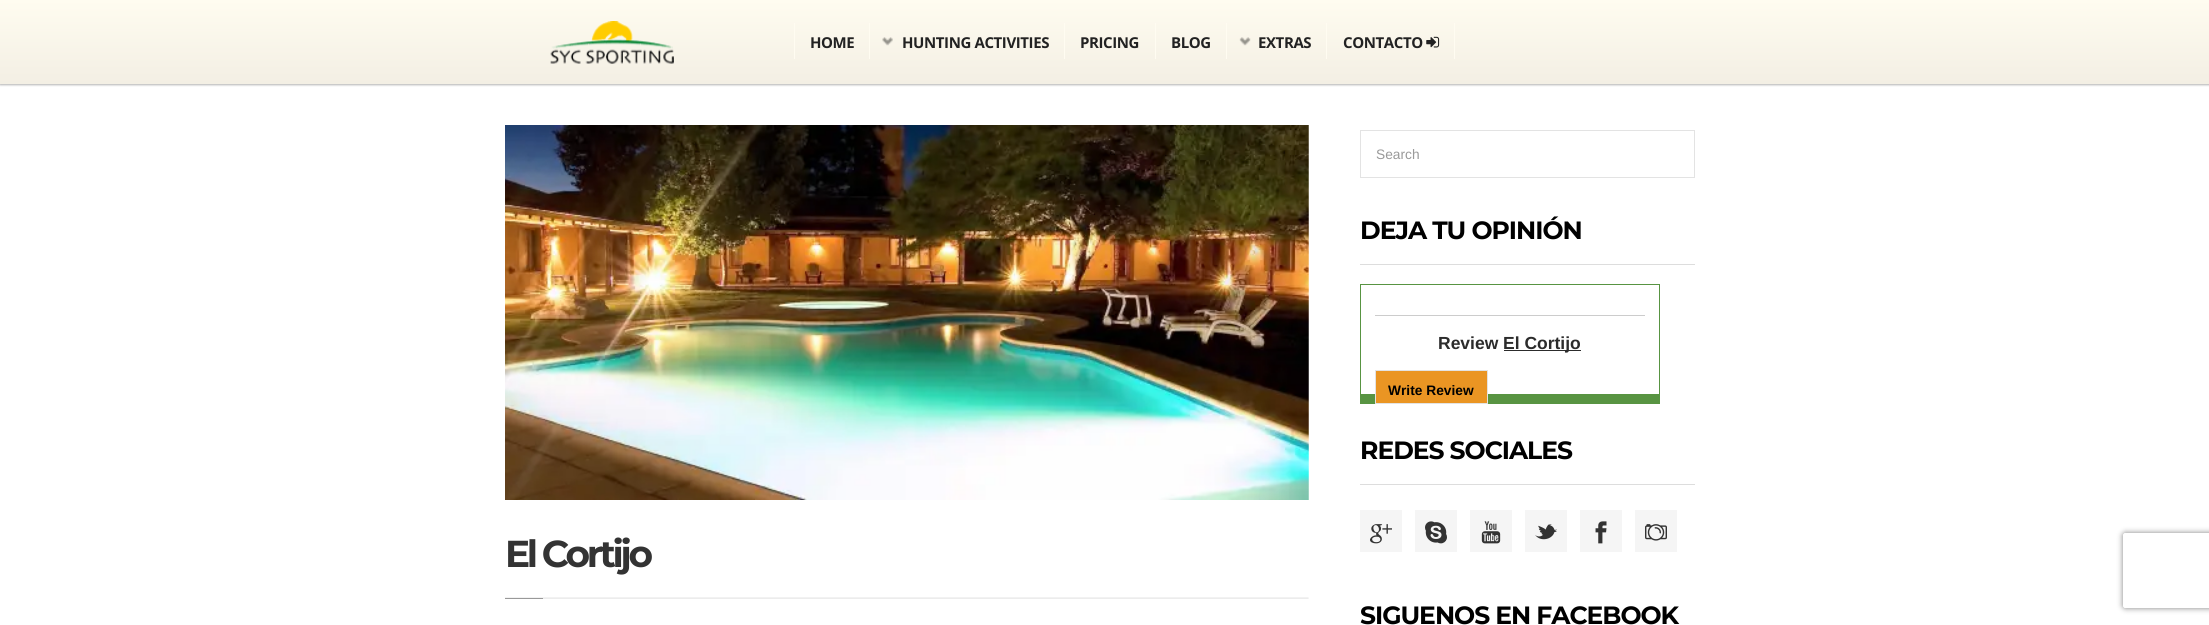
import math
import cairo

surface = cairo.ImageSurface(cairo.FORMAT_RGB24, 2209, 625)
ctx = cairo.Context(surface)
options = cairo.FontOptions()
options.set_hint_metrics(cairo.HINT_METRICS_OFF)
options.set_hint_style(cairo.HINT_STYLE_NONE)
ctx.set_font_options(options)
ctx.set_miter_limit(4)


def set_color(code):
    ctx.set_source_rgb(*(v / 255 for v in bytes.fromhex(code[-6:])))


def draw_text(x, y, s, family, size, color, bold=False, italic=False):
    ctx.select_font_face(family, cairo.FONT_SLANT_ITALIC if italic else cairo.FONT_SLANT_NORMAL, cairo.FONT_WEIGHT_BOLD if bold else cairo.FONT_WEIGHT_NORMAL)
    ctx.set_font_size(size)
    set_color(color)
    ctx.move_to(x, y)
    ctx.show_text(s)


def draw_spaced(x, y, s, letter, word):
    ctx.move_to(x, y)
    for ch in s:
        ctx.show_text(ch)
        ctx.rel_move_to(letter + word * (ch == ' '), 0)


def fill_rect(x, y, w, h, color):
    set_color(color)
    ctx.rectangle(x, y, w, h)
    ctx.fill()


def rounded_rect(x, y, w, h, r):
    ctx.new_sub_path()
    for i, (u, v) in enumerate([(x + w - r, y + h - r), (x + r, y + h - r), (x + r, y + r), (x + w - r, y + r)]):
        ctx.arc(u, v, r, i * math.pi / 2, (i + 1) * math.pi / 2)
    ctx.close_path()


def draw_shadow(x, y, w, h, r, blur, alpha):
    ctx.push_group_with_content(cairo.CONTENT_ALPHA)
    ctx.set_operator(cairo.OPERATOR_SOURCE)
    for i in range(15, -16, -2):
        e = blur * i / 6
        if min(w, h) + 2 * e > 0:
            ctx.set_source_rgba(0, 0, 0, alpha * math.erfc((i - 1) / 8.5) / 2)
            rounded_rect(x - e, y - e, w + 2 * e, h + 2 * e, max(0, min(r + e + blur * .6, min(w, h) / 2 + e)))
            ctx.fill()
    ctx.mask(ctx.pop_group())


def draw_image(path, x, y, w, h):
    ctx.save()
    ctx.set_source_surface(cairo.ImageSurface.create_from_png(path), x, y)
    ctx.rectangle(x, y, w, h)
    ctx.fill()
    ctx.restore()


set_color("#ffffff")
ctx.paint()
set_color("#000000")
draw_shadow(0, 1, 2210, 84, 0, 1, 0.3)
gradient = cairo.LinearGradient(1105, 0, 1105, 84)
gradient.add_color_stop_rgba(0, 1, 0.988, 0.941, 1)
gradient.add_color_stop_rgba(1, 0.953, 0.937, 0.894, 1)
ctx.set_source(gradient)
ctx.rectangle(0, 0, 2209, 84)
ctx.fill()
draw_image("assets/img1.png", 550, 21, 124, 43)
fill_rect(869, 23, 1, 36, "#fffcf1")
fill_rect(794, 23, 1, 36, "#fffcf1")
ctx.select_font_face("Open Sans", cairo.FONT_SLANT_NORMAL, cairo.FONT_WEIGHT_BOLD)
ctx.set_font_size(15)
set_color("#222222")
draw_spaced(810, 48, "HOME", -0.4, 0)
draw_image("assets/img2.png", 882, 37, 11, 9)
fill_rect(1064, 23, 1, 36, "#fffcf1")
set_color("#222222")
draw_spaced(902, 48, "HUNTING ACTIVITIES", -0.4, 0)
fill_rect(1155, 23, 1, 36, "#fffcf1")
set_color("#222222")
draw_spaced(1080, 48, "PRICING", -0.4, 0)
fill_rect(1226, 23, 1, 36, "#fffcf1")
set_color("#222222")
draw_spaced(1171, 48, "BLOG", -0.4, 0)
draw_image("assets/img3.png", 1239, 37, 12, 9)
fill_rect(1326, 23, 1, 36, "#fffcf1")
set_color("#222222")
draw_spaced(1258, 48, "EXTRAS", -0.4, 0)
fill_rect(1454, 23, 1, 36, "#fffcf1")
set_color("#222222")
draw_spaced(1343, 48, "CONTACTO", -0.4, 0)
draw_image("assets/img4.png", 1426, 36, 14, 12)
draw_image("assets/img5.png", 505, 125, 804, 375)
ctx.select_font_face("Montserrat", cairo.FONT_SLANT_NORMAL, cairo.FONT_WEIGHT_BOLD)
ctx.set_font_size(37.5)
set_color("#333333")
draw_spaced(505, 567, "El Cortijo", -3.4, 0)
draw_image("assets/img6.png", 505, 597, 804, 2)
fill_rect(505, 598, 38, 1, "#999999")
ctx.rectangle(1360.5, 130.5, 334, 47)
set_color("#e3e3e3")
ctx.set_line_width(1)
ctx.stroke()
draw_text(1376, 159, "Search", "Liberation Sans", 13.75, "#999999")
fill_rect(1360, 264, 335, 1, "#dddddd")
ctx.select_font_face("Montserrat", cairo.FONT_SLANT_NORMAL, cairo.FONT_WEIGHT_BOLD)
ctx.set_font_size(25)
set_color("#000000")
draw_spaced(1360, 239, "DEJA TU OPINIÓN", -1, 0)
fill_rect(1360, 395, 300, 9, "#589442")
ctx.rectangle(1360.5, 284.5, 299, 110)
ctx.stroke()
fill_rect(1375, 315, 270, 1, "#cccccc")
draw_text(1438, 349, "Review", "Liberation Sans", 17.5, "#2c2c2c", bold=True)
fill_rect(1504, 350, 77, 1, "#2c2c2c")
draw_text(1503, 349, "El Cortijo", "Liberation Sans", 17.5, "#2c2c2c", bold=True)
set_color("#ea9523")
ctx.rectangle(1375.5, 370.5, 112, 33)
ctx.fill_preserve()
set_color("#e3e3e3")
ctx.stroke()
draw_text(1388, 395, "Write Review", "Liberation Sans", 13.75, "#000000", bold=True)
fill_rect(1360, 484, 335, 1, "#dddddd")
ctx.select_font_face("Montserrat", cairo.FONT_SLANT_NORMAL, cairo.FONT_WEIGHT_BOLD)
ctx.set_font_size(25)
set_color("#000000")
draw_spaced(1360, 459, "REDES SOCIALES", -1, 0)
fill_rect(1360, 510, 42, 42, "#f5f5f5")
draw_text(1370, 542, "⥄", "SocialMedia", 22, "#333333")
fill_rect(1415, 510, 42, 42, "#f5f5f5")
draw_text(1425, 542, "⥼", "SocialMedia", 22, "#333333")
fill_rect(1470, 510, 42, 42, "#f5f5f5")
draw_text(1480, 542, "☡", "SocialMedia", 22, "#333333")
fill_rect(1525, 510, 42, 42, "#f5f5f5")
draw_text(1535, 542, "☍", "SocialMedia", 22, "#333333")
fill_rect(1580, 510, 42, 42, "#f5f5f5")
draw_text(1590, 542, "⤭", "SocialMedia", 22, "#333333")
fill_rect(1635, 510, 42, 42, "#f5f5f5")
draw_text(1645, 542, "⥦", "SocialMedia", 22, "#333333")
ctx.select_font_face("Montserrat", cairo.FONT_SLANT_NORMAL, cairo.FONT_WEIGHT_BOLD)
ctx.set_font_size(25)
set_color("#000000")
draw_spaced(1360, 624, "SIGUENOS EN FACEBOOK", -1, 0)
ctx.save()
ctx.set_fill_rule(cairo.FILL_RULE_EVEN_ODD)
ctx.new_path()
ctx.move_to(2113, 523)
ctx.line_to(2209, 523)
ctx.line_to(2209, 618)
ctx.line_to(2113, 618)
ctx.close_path()
ctx.move_to(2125.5, 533)
ctx.line_to(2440.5, 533)
ctx.curve_to(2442, 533, 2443, 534, 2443, 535.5)
ctx.line_to(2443, 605.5)
ctx.curve_to(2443, 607, 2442, 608, 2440.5, 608)
ctx.line_to(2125.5, 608)
ctx.curve_to(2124, 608, 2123, 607, 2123, 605.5)
ctx.line_to(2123, 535.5)
ctx.curve_to(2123, 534, 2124, 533, 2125.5, 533)
ctx.close_path()
ctx.clip()
set_color("#808080")
draw_shadow(2123, 533, 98, 75, 2.5, 3, 1)
ctx.restore()
surface.write_to_png("output.png")
